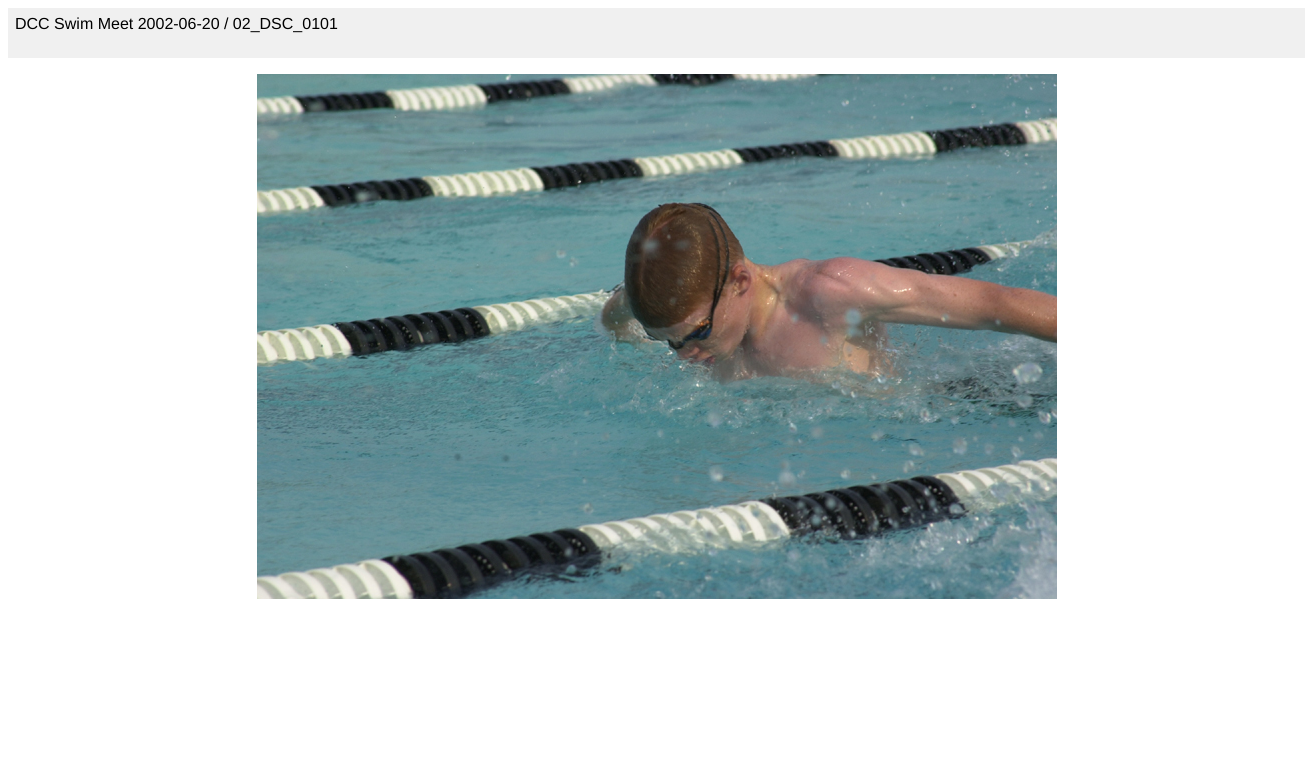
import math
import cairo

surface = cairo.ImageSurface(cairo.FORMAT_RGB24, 1313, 775)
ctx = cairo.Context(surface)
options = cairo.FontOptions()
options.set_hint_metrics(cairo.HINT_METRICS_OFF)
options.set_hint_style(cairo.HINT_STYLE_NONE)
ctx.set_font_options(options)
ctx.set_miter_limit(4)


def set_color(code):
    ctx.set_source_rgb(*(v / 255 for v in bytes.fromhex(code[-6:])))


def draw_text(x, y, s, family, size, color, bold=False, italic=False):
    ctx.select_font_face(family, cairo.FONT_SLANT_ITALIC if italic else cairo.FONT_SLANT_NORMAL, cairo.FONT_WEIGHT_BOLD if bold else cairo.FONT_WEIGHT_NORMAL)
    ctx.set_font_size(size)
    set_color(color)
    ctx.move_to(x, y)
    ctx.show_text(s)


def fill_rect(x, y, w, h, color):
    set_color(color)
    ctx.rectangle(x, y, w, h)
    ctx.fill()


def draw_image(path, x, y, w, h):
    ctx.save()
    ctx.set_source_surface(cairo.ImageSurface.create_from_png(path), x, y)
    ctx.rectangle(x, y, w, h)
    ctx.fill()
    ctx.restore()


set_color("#ffffff")
ctx.paint()
fill_rect(8, 8, 1297, 50, "#f0f0f0")
draw_text(15, 29, "DCC Swim Meet 2002-06-20 / 02_DSC_0101", "Liberation Sans", 16, "#000000")
draw_image("assets/img1.png", 257, 74, 800, 525)
surface.write_to_png("output.png")
